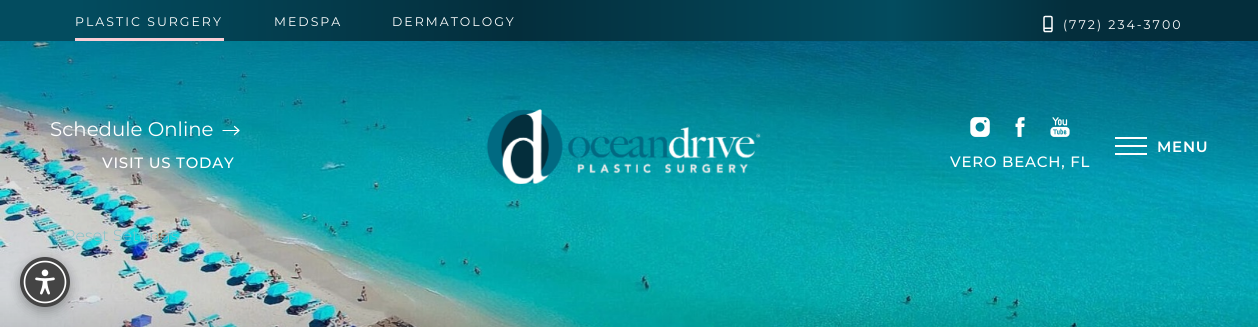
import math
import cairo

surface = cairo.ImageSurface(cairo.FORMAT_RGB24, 1258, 327)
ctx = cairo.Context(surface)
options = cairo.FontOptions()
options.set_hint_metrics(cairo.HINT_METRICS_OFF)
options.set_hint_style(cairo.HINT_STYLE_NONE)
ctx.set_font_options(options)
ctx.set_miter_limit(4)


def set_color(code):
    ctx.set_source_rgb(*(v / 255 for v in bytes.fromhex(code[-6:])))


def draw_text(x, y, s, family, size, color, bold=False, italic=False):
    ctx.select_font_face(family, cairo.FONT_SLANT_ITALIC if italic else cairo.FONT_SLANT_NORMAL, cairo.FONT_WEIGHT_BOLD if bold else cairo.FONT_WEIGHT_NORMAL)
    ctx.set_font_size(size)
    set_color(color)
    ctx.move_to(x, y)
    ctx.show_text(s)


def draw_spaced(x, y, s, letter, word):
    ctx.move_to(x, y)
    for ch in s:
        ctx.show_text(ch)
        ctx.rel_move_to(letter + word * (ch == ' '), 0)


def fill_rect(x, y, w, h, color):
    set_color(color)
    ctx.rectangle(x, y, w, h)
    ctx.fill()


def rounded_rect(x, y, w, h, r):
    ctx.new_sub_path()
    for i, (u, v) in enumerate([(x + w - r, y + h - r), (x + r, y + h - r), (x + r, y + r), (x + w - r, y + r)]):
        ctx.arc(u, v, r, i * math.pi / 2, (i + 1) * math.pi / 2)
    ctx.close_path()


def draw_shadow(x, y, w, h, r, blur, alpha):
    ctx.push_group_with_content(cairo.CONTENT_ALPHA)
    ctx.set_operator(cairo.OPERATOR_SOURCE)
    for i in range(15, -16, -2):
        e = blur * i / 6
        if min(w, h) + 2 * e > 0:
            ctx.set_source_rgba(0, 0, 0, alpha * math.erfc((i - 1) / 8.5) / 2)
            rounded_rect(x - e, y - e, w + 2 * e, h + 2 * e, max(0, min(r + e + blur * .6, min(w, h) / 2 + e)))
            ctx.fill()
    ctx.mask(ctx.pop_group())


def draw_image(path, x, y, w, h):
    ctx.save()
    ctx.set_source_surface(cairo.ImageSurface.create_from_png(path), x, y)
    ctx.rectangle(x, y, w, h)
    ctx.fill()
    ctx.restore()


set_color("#ffffff")
ctx.paint()
gradient = cairo.LinearGradient(1258, 20, 0, 21)
gradient.add_color_stop_rgba(0.15, 0.016, 0.18, 0.235, 1)
gradient.add_color_stop_rgba(0.29, 0.012, 0.298, 0.373, 1)
gradient.add_color_stop_rgba(0.59, 0.016, 0.18, 0.235, 1)
gradient.add_color_stop_rgba(0.94, 0.012, 0.298, 0.373, 1)
ctx.set_source(gradient)
ctx.rectangle(0, 0, 1258, 41)
ctx.fill()
fill_rect(75, 38, 149, 3, "#facdd5")
ctx.select_font_face("Montserrat")
ctx.set_font_size(12.5)
set_color("#ffffff")
draw_spaced(75, 26, "PLASTIC SURGERY", 2, 0)
draw_spaced(274, 26, "MEDSPA", 2, 0)
draw_spaced(392, 26, "DERMATOLOGY", 2, 0)
draw_image("assets/img1.png", 1043, 15, 10, 18)
draw_spaced(1063, 29, "(772) 234-3700", 2, 0)
draw_image("assets/img7.png", 0, 41, 1258, 286)
draw_text(50, 136, "Schedule Online", "Montserrat", 19.75, "#ffffff")
draw_image("assets/img2.png", 222, 125, 18, 11)
ctx.select_font_face("Montserrat Medium")
ctx.set_font_size(15)
draw_spaced(102, 168, "VISIT US TODAY", 0.75, 0)
draw_image("assets/img3.png", 486, 109, 275, 75)
fill_rect(1115, 137, 32, 2, "#ffffff")
fill_rect(1115, 145, 32, 2, "#ffffff")
fill_rect(1115, 153, 32, 2, "#ffffff")
ctx.select_font_face("Montserrat SemiBold")
draw_spaced(1157, 152, "MENU", 0.75, 0)
draw_image("assets/img4.png", 970, 117, 20, 20)
draw_image("assets/img5.png", 1015, 117, 10, 20)
draw_image("assets/img6.png", 1050, 117, 20, 20)
ctx.select_font_face("Montserrat Medium")
draw_spaced(950, 167, "VERO BEACH, FL", 0.75, 0)
set_color("#000000")
draw_shadow(20, 261, 50, 50, 25, 6, 0.3)
draw_text(64, 241, "Reset Settings", "Montserrat Light", 16, "#82c3c8")
set_color("#444444")
ctx.new_path()
ctx.arc(45, 282, 25, 0, 2 * math.pi)
ctx.fill()
draw_image("assets/img8.png", 23, 260, 44, 44)
surface.write_to_png("output.png")
